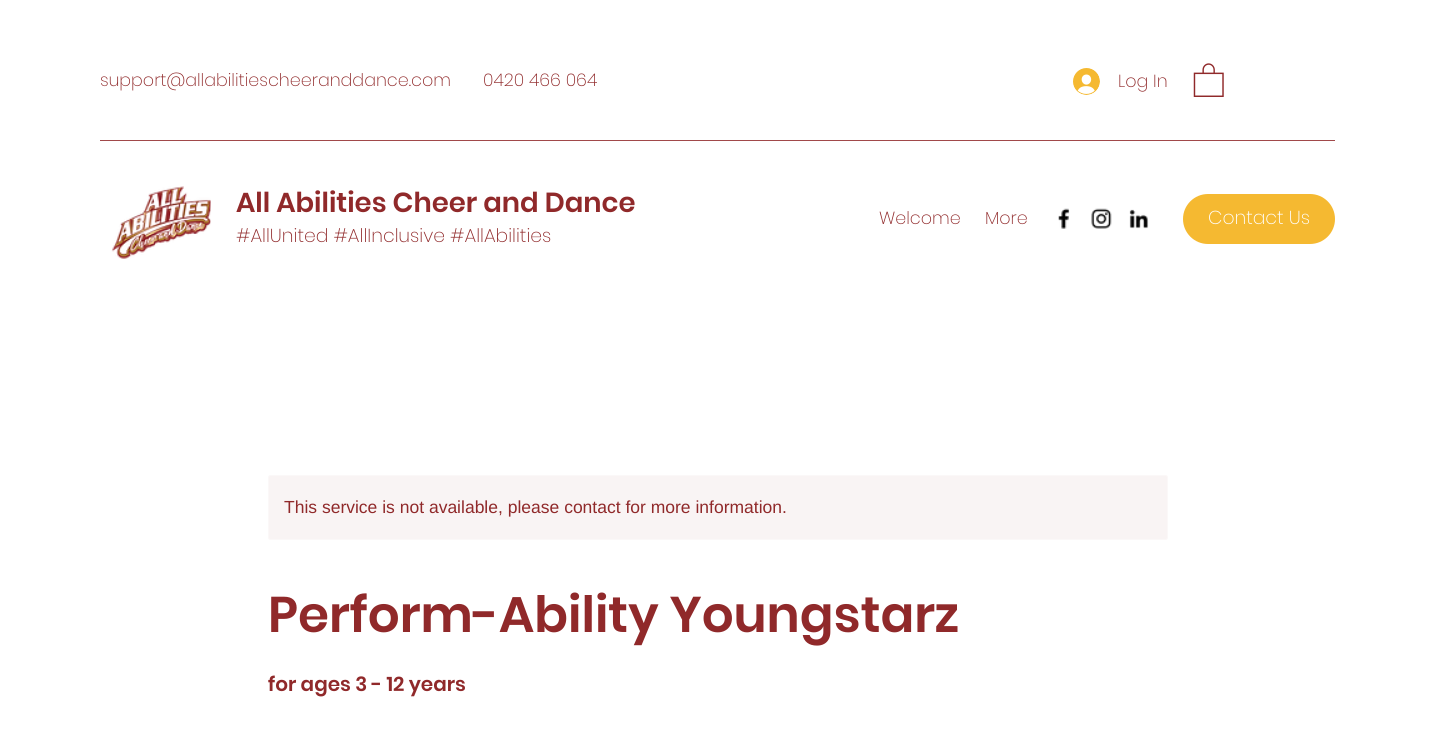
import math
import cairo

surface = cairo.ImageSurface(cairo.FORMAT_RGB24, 1435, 739)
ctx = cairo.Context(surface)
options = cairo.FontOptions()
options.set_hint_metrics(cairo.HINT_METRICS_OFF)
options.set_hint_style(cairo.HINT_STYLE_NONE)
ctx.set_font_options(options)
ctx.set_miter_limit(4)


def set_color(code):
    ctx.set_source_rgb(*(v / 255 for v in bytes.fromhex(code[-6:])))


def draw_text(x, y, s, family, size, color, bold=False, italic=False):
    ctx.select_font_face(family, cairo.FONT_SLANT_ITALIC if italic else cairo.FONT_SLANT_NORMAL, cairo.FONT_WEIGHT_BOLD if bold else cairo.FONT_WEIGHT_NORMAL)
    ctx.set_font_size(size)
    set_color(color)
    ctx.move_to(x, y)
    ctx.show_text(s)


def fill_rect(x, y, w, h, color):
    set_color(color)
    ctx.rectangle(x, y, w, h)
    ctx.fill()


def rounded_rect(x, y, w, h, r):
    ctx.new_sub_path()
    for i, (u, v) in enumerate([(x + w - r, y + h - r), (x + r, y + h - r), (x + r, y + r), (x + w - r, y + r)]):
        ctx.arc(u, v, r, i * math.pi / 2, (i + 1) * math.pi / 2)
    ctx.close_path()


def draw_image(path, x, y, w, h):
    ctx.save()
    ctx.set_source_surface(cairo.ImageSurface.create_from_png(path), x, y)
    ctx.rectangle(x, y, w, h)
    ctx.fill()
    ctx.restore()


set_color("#ffffff")
ctx.paint()
draw_text(100, 86, "support@allabilitiescheeranddance.com", "Poppins ExtraLight", 17.5, "#90292a")
draw_text(483, 86, "0420 466 064", "Poppins ExtraLight", 17.5, "#90292a")
draw_image("assets/img1.png", 1073, 68, 27, 27)
draw_text(1118, 87, "Log In", "Poppins ExtraLight", 17.5, "#90292a")
draw_image("assets/img2.png", 1193, 63, 31, 34)
fill_rect(100, 140, 1235, 1, "#a1494a")
draw_image("assets/img3.png", 111, 186, 100, 73)
draw_text(236, 212, "All Abilities Cheer and Dance", "Poppins SemiBold", 27.5, "#90292a")
draw_text(236, 242, "#AllUnited #AllInclusive #AllAbilities", "Poppins ExtraLight", 18.75, "#90292a")
draw_text(879, 224, "Welcome", "Poppins ExtraLight", 17.5, "#90292a")
draw_text(985, 224, "More", "Poppins ExtraLight", 17.5, "#90292a")
draw_image("assets/img4.png", 1058, 208, 12, 21)
draw_image("assets/img5.png", 1091, 208, 21, 21)
draw_image("assets/img6.png", 1129, 209, 20, 20)
set_color("#f5b931")
rounded_rect(1183, 194, 152, 50, 25)
ctx.fill()
draw_text(1208, 224, "Contact Us", "Poppins ExtraLight", 18.75, "#ffffff")
set_color("#f9f4f4")
rounded_rect(268, 475, 900, 65, 2.5)
ctx.fill()
rounded_rect(268.5, 475.5, 899, 64, 2)
ctx.set_source_rgba(1, 1, 1, 0.4)
ctx.set_line_width(1)
ctx.stroke()
draw_text(284, 513, "This service is not available, please contact for more information.", "Liberation Sans", 17.5, "#90292a")
draw_text(268, 632, "Perform-Ability Youngstarz", "Poppins SemiBold", 50, "#90292a")
draw_text(268, 691, "for ages 3 - 12 years", "Poppins SemiBold", 20, "#90292a")
surface.write_to_png("output.png")
